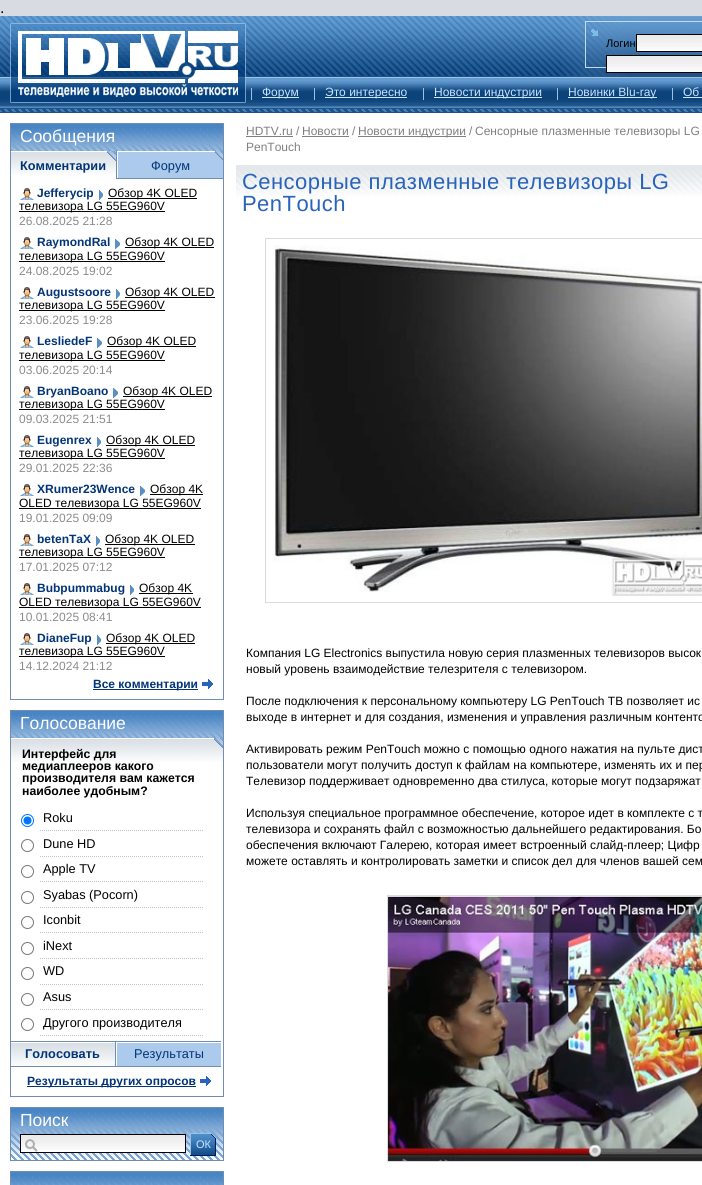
import math
import cairo

surface = cairo.ImageSurface(cairo.FORMAT_RGB24, 702, 1185)
ctx = cairo.Context(surface)
options = cairo.FontOptions()
options.set_hint_metrics(cairo.HINT_METRICS_OFF)
options.set_hint_style(cairo.HINT_STYLE_NONE)
ctx.set_font_options(options)
ctx.set_miter_limit(4)


def set_color(code):
    ctx.set_source_rgb(*(v / 255 for v in bytes.fromhex(code[-6:])))


def draw_text(x, y, s, family, size, color, bold=False, italic=False):
    ctx.select_font_face(family, cairo.FONT_SLANT_ITALIC if italic else cairo.FONT_SLANT_NORMAL, cairo.FONT_WEIGHT_BOLD if bold else cairo.FONT_WEIGHT_NORMAL)
    ctx.set_font_size(size)
    set_color(color)
    ctx.move_to(x, y)
    ctx.show_text(s)


def draw_spaced(x, y, s, letter, word):
    ctx.move_to(x, y)
    for ch in s:
        ctx.show_text(ch)
        ctx.rel_move_to(letter + word * (ch == ' '), 0)


def fill_rect(x, y, w, h, color):
    set_color(color)
    ctx.rectangle(x, y, w, h)
    ctx.fill()


def draw_image(path, x, y, w, h):
    ctx.save()
    ctx.set_source_surface(cairo.ImageSurface.create_from_png(path), x, y)
    ctx.rectangle(x, y, w, h)
    ctx.fill()
    ctx.restore()


set_color("#d8dce2")
ctx.paint()
draw_text(0, 13, ".", "Liberation Sans", 16, "#000000")
fill_rect(0, 113, 702, 1072, "#ffffff")
draw_image("assets/img1.png", 0, 16, 702, 97)
draw_image("assets/img7.png", 0, 78, 702, 30)
fill_rect(0, 77, 702, 1, "#a0c2e2")
draw_image("assets/img2.png", 10, 23, 236, 80)
draw_image("assets/img3.png", 562, 16, 140, 61)
ctx.rectangle(585.5, 21.5, 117, 46)
set_color("#bedcf6")
ctx.set_line_width(1)
ctx.stroke()
draw_image("assets/img4.png", 591, 29, 7, 7)
draw_text(606, 47, "Логин", "Liberation Sans", 11, "#000000")
fill_rect(637, 50, 65, 1, "#ffffff")
draw_image("assets/img5.png", 637, 35, 65, 15)
ctx.rectangle(636.5, 34.5, 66, 17)
set_color("#000000")
ctx.stroke()
fill_rect(607, 71, 95, 1, "#ffffff")
draw_image("assets/img6.png", 607, 56, 95, 15)
ctx.rectangle(606.5, 55.5, 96, 17)
set_color("#000000")
ctx.stroke()
fill_rect(251, 88, 1, 12, "#a0c2e2")
fill_rect(262, 97, 37, 1, "#c8e4ff")
draw_text(262, 96, "Форум", "Liberation Sans", 12, "#c8e4ff")
fill_rect(314, 88, 1, 12, "#a0c2e2")
fill_rect(325, 97, 82, 1, "#c8e4ff")
draw_text(325, 96, "Это интересно", "Liberation Sans", 12, "#c8e4ff")
fill_rect(423, 88, 1, 12, "#a0c2e2")
fill_rect(434, 97, 108, 1, "#c8e4ff")
draw_text(434, 96, "Новости индустрии", "Liberation Sans", 12, "#c8e4ff")
fill_rect(557, 88, 1, 12, "#a0c2e2")
fill_rect(568, 97, 89, 1, "#c8e4ff")
draw_text(568, 96, "Новинки Blu-ray", "Liberation Sans", 12, "#c8e4ff")
fill_rect(672, 88, 1, 12, "#a0c2e2")
draw_text(683, 96, "Об", "Liberation Sans", 12, "#c8e4ff")
fill_rect(683, 97, 19, 1, "#c8e4ff")
ctx.rectangle(10.5, 123.5, 213, 576)
set_color("#728db5")
ctx.stroke()
fill_rect(11, 124, 212, 4, "#4984c3")
draw_image("assets/img8.png", 11, 128, 212, 23)
draw_text(20, 142, "Сообщения", "Liberation Sans", 17.5, "#ffffff")
draw_image("assets/img9.png", 11, 152, 105, 23)
fill_rect(116, 151, 1, 28, "#728db5")
draw_image("assets/img10.png", 107, 151, 9, 10)
draw_text(20, 170, "Комментарии", "Liberation Sans", 12.75, "#023477", bold=True)
fill_rect(118, 152, 105, 26, "#abcaec")
draw_image("assets/img11.png", 215, 151, 8, 9)
draw_text(151, 170, "Форум", "Liberation Sans", 12.75, "#023477")
fill_rect(117, 178, 106, 1, "#728db5")
draw_image("assets/img12.png", 20, 188, 14, 12)
draw_text(37, 197, "Jefferycip", "Liberation Sans", 12, "#023477", bold=True)
draw_image("assets/img13.png", 99, 190, 4, 10)
fill_rect(108, 198, 89, 1, "#000000")
draw_text(108, 197, "Обзор 4K OLED", "Liberation Sans", 12, "#000000")
fill_rect(19, 211, 146, 1, "#000000")
draw_text(19, 210, "телевизора LG 55EG960V", "Liberation Sans", 12, "#000000")
draw_text(19, 225, "26.08.2025 21:28", "Liberation Sans", 12, "#898c8e")
draw_image("assets/img12.png", 20, 237, 14, 12)
draw_text(37, 246, "RaymondRal", "Liberation Sans", 12, "#023477", bold=True)
draw_image("assets/img14.png", 115, 239, 5, 10)
fill_rect(125, 247, 89, 1, "#000000")
draw_text(125, 246, "Обзор 4K OLED", "Liberation Sans", 12, "#000000")
fill_rect(19, 261, 146, 1, "#000000")
draw_text(19, 260, "телевизора LG 55EG960V", "Liberation Sans", 12, "#000000")
draw_text(19, 275, "24.08.2025 19:02", "Liberation Sans", 12, "#898c8e")
draw_image("assets/img12.png", 20, 287, 14, 12)
draw_text(37, 296, "Augustsoore", "Liberation Sans", 12, "#023477", bold=True)
draw_image("assets/img13.png", 116, 289, 4, 10)
fill_rect(125, 297, 90, 1, "#000000")
draw_text(125, 296, "Обзор 4K OLED", "Liberation Sans", 12, "#000000")
fill_rect(19, 310, 146, 1, "#000000")
draw_text(19, 309, "телевизора LG 55EG960V", "Liberation Sans", 12, "#000000")
draw_text(19, 324, "23.06.2025 19:28", "Liberation Sans", 12, "#898c8e")
draw_image("assets/img12.png", 20, 336, 14, 12)
draw_text(37, 345, "LesliedeF", "Liberation Sans", 12, "#023477", bold=True)
draw_image("assets/img14.png", 97, 338, 5, 10)
fill_rect(107, 346, 89, 1, "#000000")
draw_text(107, 345, "Обзор 4K OLED", "Liberation Sans", 12, "#000000")
fill_rect(19, 360, 146, 1, "#000000")
draw_text(19, 359, "телевизора LG 55EG960V", "Liberation Sans", 12, "#000000")
draw_text(19, 374, "03.06.2025 20:14", "Liberation Sans", 12, "#898c8e")
draw_image("assets/img12.png", 20, 386, 14, 12)
draw_text(37, 395, "BryanBoano", "Liberation Sans", 12, "#023477", bold=True)
draw_image("assets/img14.png", 113, 388, 5, 10)
fill_rect(123, 396, 89, 1, "#000000")
draw_text(123, 395, "Обзор 4K OLED", "Liberation Sans", 12, "#000000")
fill_rect(19, 409, 146, 1, "#000000")
draw_text(19, 408, "телевизора LG 55EG960V", "Liberation Sans", 12, "#000000")
draw_text(19, 423, "09.03.2025 21:51", "Liberation Sans", 12, "#898c8e")
draw_image("assets/img12.png", 20, 435, 14, 12)
draw_text(37, 444, "Eugenrex", "Liberation Sans", 12, "#023477", bold=True)
draw_image("assets/img13.png", 97, 437, 4, 10)
fill_rect(106, 445, 89, 1, "#000000")
draw_text(106, 444, "Обзор 4K OLED", "Liberation Sans", 12, "#000000")
fill_rect(19, 458, 146, 1, "#000000")
draw_text(19, 457, "телевизора LG 55EG960V", "Liberation Sans", 12, "#000000")
draw_text(19, 472, "29.01.2025 22:36", "Liberation Sans", 12, "#898c8e")
draw_image("assets/img12.png", 20, 484, 14, 12)
draw_text(37, 493, "XRumer23Wence", "Liberation Sans", 12, "#023477", bold=True)
draw_image("assets/img14.png", 140, 486, 5, 10)
fill_rect(150, 494, 53, 1, "#000000")
draw_text(150, 493, "Обзор 4K", "Liberation Sans", 12, "#000000")
fill_rect(19, 508, 182, 1, "#000000")
draw_text(19, 507, "OLED телевизора LG 55EG960V", "Liberation Sans", 12, "#000000")
draw_text(19, 522, "19.01.2025 09:09", "Liberation Sans", 12, "#898c8e")
draw_image("assets/img12.png", 20, 534, 14, 12)
draw_text(37, 543, "betenTaX", "Liberation Sans", 12, "#023477", bold=True)
draw_image("assets/img13.png", 96, 536, 4, 10)
fill_rect(105, 544, 90, 1, "#000000")
draw_text(105, 543, "Обзор 4K OLED", "Liberation Sans", 12, "#000000")
fill_rect(19, 557, 146, 1, "#000000")
draw_text(19, 556, "телевизора LG 55EG960V", "Liberation Sans", 12, "#000000")
draw_text(19, 571, "17.01.2025 07:12", "Liberation Sans", 12, "#898c8e")
draw_image("assets/img12.png", 20, 583, 14, 12)
draw_text(37, 592, "Bubpummabug", "Liberation Sans", 12, "#023477", bold=True)
draw_image("assets/img13.png", 130, 585, 4, 10)
fill_rect(139, 593, 54, 1, "#000000")
draw_text(139, 592, "Обзор 4K", "Liberation Sans", 12, "#000000")
fill_rect(19, 607, 182, 1, "#000000")
draw_text(19, 606, "OLED телевизора LG 55EG960V", "Liberation Sans", 12, "#000000")
draw_text(19, 621, "10.01.2025 08:41", "Liberation Sans", 12, "#898c8e")
draw_image("assets/img12.png", 20, 633, 14, 12)
draw_text(37, 642, "DianeFup", "Liberation Sans", 12, "#023477", bold=True)
draw_image("assets/img13.png", 97, 635, 4, 10)
fill_rect(106, 643, 89, 1, "#000000")
draw_text(106, 642, "Обзор 4K OLED", "Liberation Sans", 12, "#000000")
fill_rect(19, 656, 146, 1, "#000000")
draw_text(19, 655, "телевизора LG 55EG960V", "Liberation Sans", 12, "#000000")
draw_text(19, 670, "14.12.2024 21:12", "Liberation Sans", 12, "#898c8e")
fill_rect(93, 689, 105, 1, "#023477")
draw_text(93, 688, "Все комментарии", "Liberation Sans", 12, "#023477", bold=True)
draw_image("assets/img15.png", 202, 679, 11, 10)
ctx.rectangle(10.5, 710.5, 213, 386)
set_color("#728db5")
ctx.stroke()
fill_rect(11, 711, 212, 4, "#4984c3")
draw_image("assets/img8.png", 11, 715, 212, 23)
draw_text(20, 729, "Голосование", "Liberation Sans", 17.5, "#ffffff")
draw_image("assets/img16.png", 11, 739, 212, 23)
draw_image("assets/img17.png", 214, 738, 9, 10)
draw_text(22, 758, "Интерфейс для", "Liberation Sans", 12.25, "#000000", bold=True)
draw_text(22, 770, "медиаплееров какого", "Liberation Sans", 12.25, "#000000", bold=True)
draw_text(22, 782, "производителя вам кажется", "Liberation Sans", 12.25, "#000000", bold=True)
draw_text(22, 795, "наиболее удобным?", "Liberation Sans", 12.25, "#000000", bold=True)
ctx.new_path()
ctx.arc(27.5, 820.5, 6, 0, 2 * math.pi)
set_color("#0075ff")
ctx.stroke()
ctx.arc(27.5, 820.5, 4, 0, 2 * math.pi)
ctx.fill()
draw_image("assets/img18.png", 40, 830, 163, 1)
draw_text(43, 822, "Roku", "Liberation Sans", 12.75, "#000000")
ctx.new_path()
ctx.arc(27.5, 845.5, 6, 0, 2 * math.pi)
set_color("#767676")
ctx.stroke()
draw_image("assets/img18.png", 40, 856, 163, 1)
draw_text(43, 848, "Dune HD", "Liberation Sans", 12.75, "#000000")
ctx.new_path()
ctx.arc(27.5, 871.5, 6, 0, 2 * math.pi)
set_color("#767676")
ctx.stroke()
draw_image("assets/img18.png", 40, 881, 163, 1)
draw_text(43, 873, "Apple TV", "Liberation Sans", 12.75, "#000000")
ctx.new_path()
ctx.arc(27.5, 897.5, 6, 0, 2 * math.pi)
set_color("#767676")
ctx.stroke()
draw_image("assets/img18.png", 40, 907, 163, 1)
draw_text(43, 899, "Syabas (Pocorn)", "Liberation Sans", 12.75, "#000000")
ctx.new_path()
ctx.arc(27.5, 922.5, 6, 0, 2 * math.pi)
set_color("#767676")
ctx.stroke()
draw_image("assets/img18.png", 40, 932, 163, 1)
draw_text(43, 924, "Iconbit", "Liberation Sans", 12.75, "#000000")
ctx.new_path()
ctx.arc(27.5, 948.5, 6, 0, 2 * math.pi)
set_color("#767676")
ctx.stroke()
draw_image("assets/img18.png", 40, 958, 163, 1)
draw_text(43, 950, "iNext", "Liberation Sans", 12.75, "#000000")
ctx.new_path()
ctx.arc(27.5, 973.5, 6, 0, 2 * math.pi)
set_color("#767676")
ctx.stroke()
draw_image("assets/img18.png", 40, 984, 163, 1)
draw_text(43, 975, "WD", "Liberation Sans", 12.75, "#000000")
ctx.new_path()
ctx.arc(27.5, 999.5, 6, 0, 2 * math.pi)
set_color("#767676")
ctx.stroke()
draw_image("assets/img18.png", 40, 1009, 163, 1)
draw_text(43, 1001, "Asus", "Liberation Sans", 12.75, "#000000")
ctx.new_path()
ctx.arc(27.5, 1024.5, 6, 0, 2 * math.pi)
set_color("#767676")
ctx.stroke()
draw_image("assets/img18.png", 40, 1035, 163, 1)
draw_text(43, 1027, "Другого производителя", "Liberation Sans", 12.75, "#000000")
fill_rect(11, 1041, 210, 1, "#728db5")
fill_rect(11, 1066, 210, 1, "#728db5")
draw_image("assets/img19.png", 11, 1043, 104, 23)
fill_rect(115, 1042, 1, 24, "#728db5")
draw_text(25, 1058, "Голосовать", "Liberation Sans", 12.75, "#023477", bold=True)
fill_rect(117, 1043, 104, 23, "#abcaec")
draw_text(134, 1058, "Результаты", "Liberation Sans", 12.75, "#023477")
fill_rect(27, 1086, 169, 1, "#023477")
draw_text(27, 1085, "Результаты других опросов", "Liberation Sans", 12, "#023477", bold=True)
draw_image("assets/img15.png", 200, 1076, 11, 10)
ctx.rectangle(10.5, 1107.5, 213, 53)
set_color("#728db5")
ctx.stroke()
fill_rect(11, 1108, 212, 4, "#4984c3")
draw_image("assets/img20.png", 11, 1112, 212, 48)
draw_text(20, 1126, "Поиск", "Liberation Sans", 17.5, "#ffffff")
fill_rect(21, 1150, 164, 2, "#ffffff")
draw_image("assets/img21.png", 21, 1135, 164, 15)
ctx.rectangle(20.5, 1134.5, 165, 18)
set_color("#000000")
ctx.stroke()
draw_image("assets/img22.png", 25, 1139, 13, 13)
draw_image("assets/img23.png", 190, 1133, 26, 23)
draw_text(196, 1148, "ОК", "Liberation Sans", 11, "#c8e4ff")
ctx.rectangle(10.5, 1171.5, 213, 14)
set_color("#728db5")
ctx.stroke()
fill_rect(11, 1172, 212, 4, "#4984c3")
draw_image("assets/img24.png", 11, 1176, 212, 9)
draw_text(246, 135, "HDTV.ru", "Liberation Sans", 12, "#7f7f7f")
fill_rect(246, 136, 47, 1, "#7f7f7f")
draw_text(296, 135, "/", "Liberation Sans", 12, "#7f7f7f")
draw_text(302, 135, "Новости", "Liberation Sans", 12, "#7f7f7f")
fill_rect(302, 136, 47, 1, "#7f7f7f")
draw_text(352, 135, "/", "Liberation Sans", 12, "#7f7f7f")
fill_rect(358, 136, 108, 1, "#7f7f7f")
draw_text(358, 135, "Новости индустрии", "Liberation Sans", 12, "#7f7f7f")
draw_text(469, 135, "/", "Liberation Sans", 12, "#7f7f7f")
draw_text(475, 135, "Сенсорные плазменные телевизоры LG", "Liberation Sans", 12, "#7f7f7f")
draw_text(246, 151, "PenTouch", "Liberation Sans", 12, "#7f7f7f")
draw_image("assets/img25.png", 236, 165, 466, 31)
ctx.set_font_size(22)
set_color("#2963bc")
draw_spaced(242, 189, "Сенсорные плазменные телевизоры LG", 0.45, 0)
draw_spaced(242, 211, "PenTouch", 0.45, 0)
ctx.rectangle(265.5, 238.5, 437, 364)
set_color("#d8dce2")
ctx.stroke()
draw_image("assets/img26.png", 273, 245, 429, 351)
draw_text(246, 657, "Компания LG Electronics выпустила новую серия плазменных телевизоров высок", "Liberation Sans", 12, "#000000")
draw_text(246, 673, "новый уровень взаимодействие телезрителя с телевизором.", "Liberation Sans", 12, "#000000")
draw_text(246, 705, "После подключения к персональному компьютеру LG PenTouch ТВ позволяет ис", "Liberation Sans", 12, "#000000")
draw_text(246, 721, "выходе в интернет и для создания, изменения и управления различным контенто", "Liberation Sans", 12, "#000000")
draw_text(246, 753, "Активировать режим PenTouch можно с помощью одного нажатия на пульте дист", "Liberation Sans", 12, "#000000")
draw_text(246, 769, "пользователи могут получить доступ к файлам на компьютере, изменять их и пер", "Liberation Sans", 12, "#000000")
draw_text(246, 785, "Телевизор поддерживает одновременно два стилуса, которые могут подзаряжат", "Liberation Sans", 12, "#000000")
draw_text(246, 817, "Используя специальное программное обеспечение, которое идет в комплекте с т", "Liberation Sans", 12, "#000000")
draw_text(246, 833, "телевизора и сохранять файл с возможностью дальнейшего редактирования. Бо", "Liberation Sans", 12, "#000000")
draw_text(246, 849, "обеспечения включают Галерею, которая имеет встроенный слайд-плеер; Цифр", "Liberation Sans", 12, "#000000")
draw_text(246, 865, "можете оставлять и контролировать заметки и список дел для членов вашей сем", "Liberation Sans", 12, "#000000")
ctx.rectangle(387.5, 895.5, 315, 266)
set_color("#d8dce2")
ctx.stroke()
draw_image("assets/img27.png", 388, 896, 314, 265)
surface.write_to_png("output.png")
